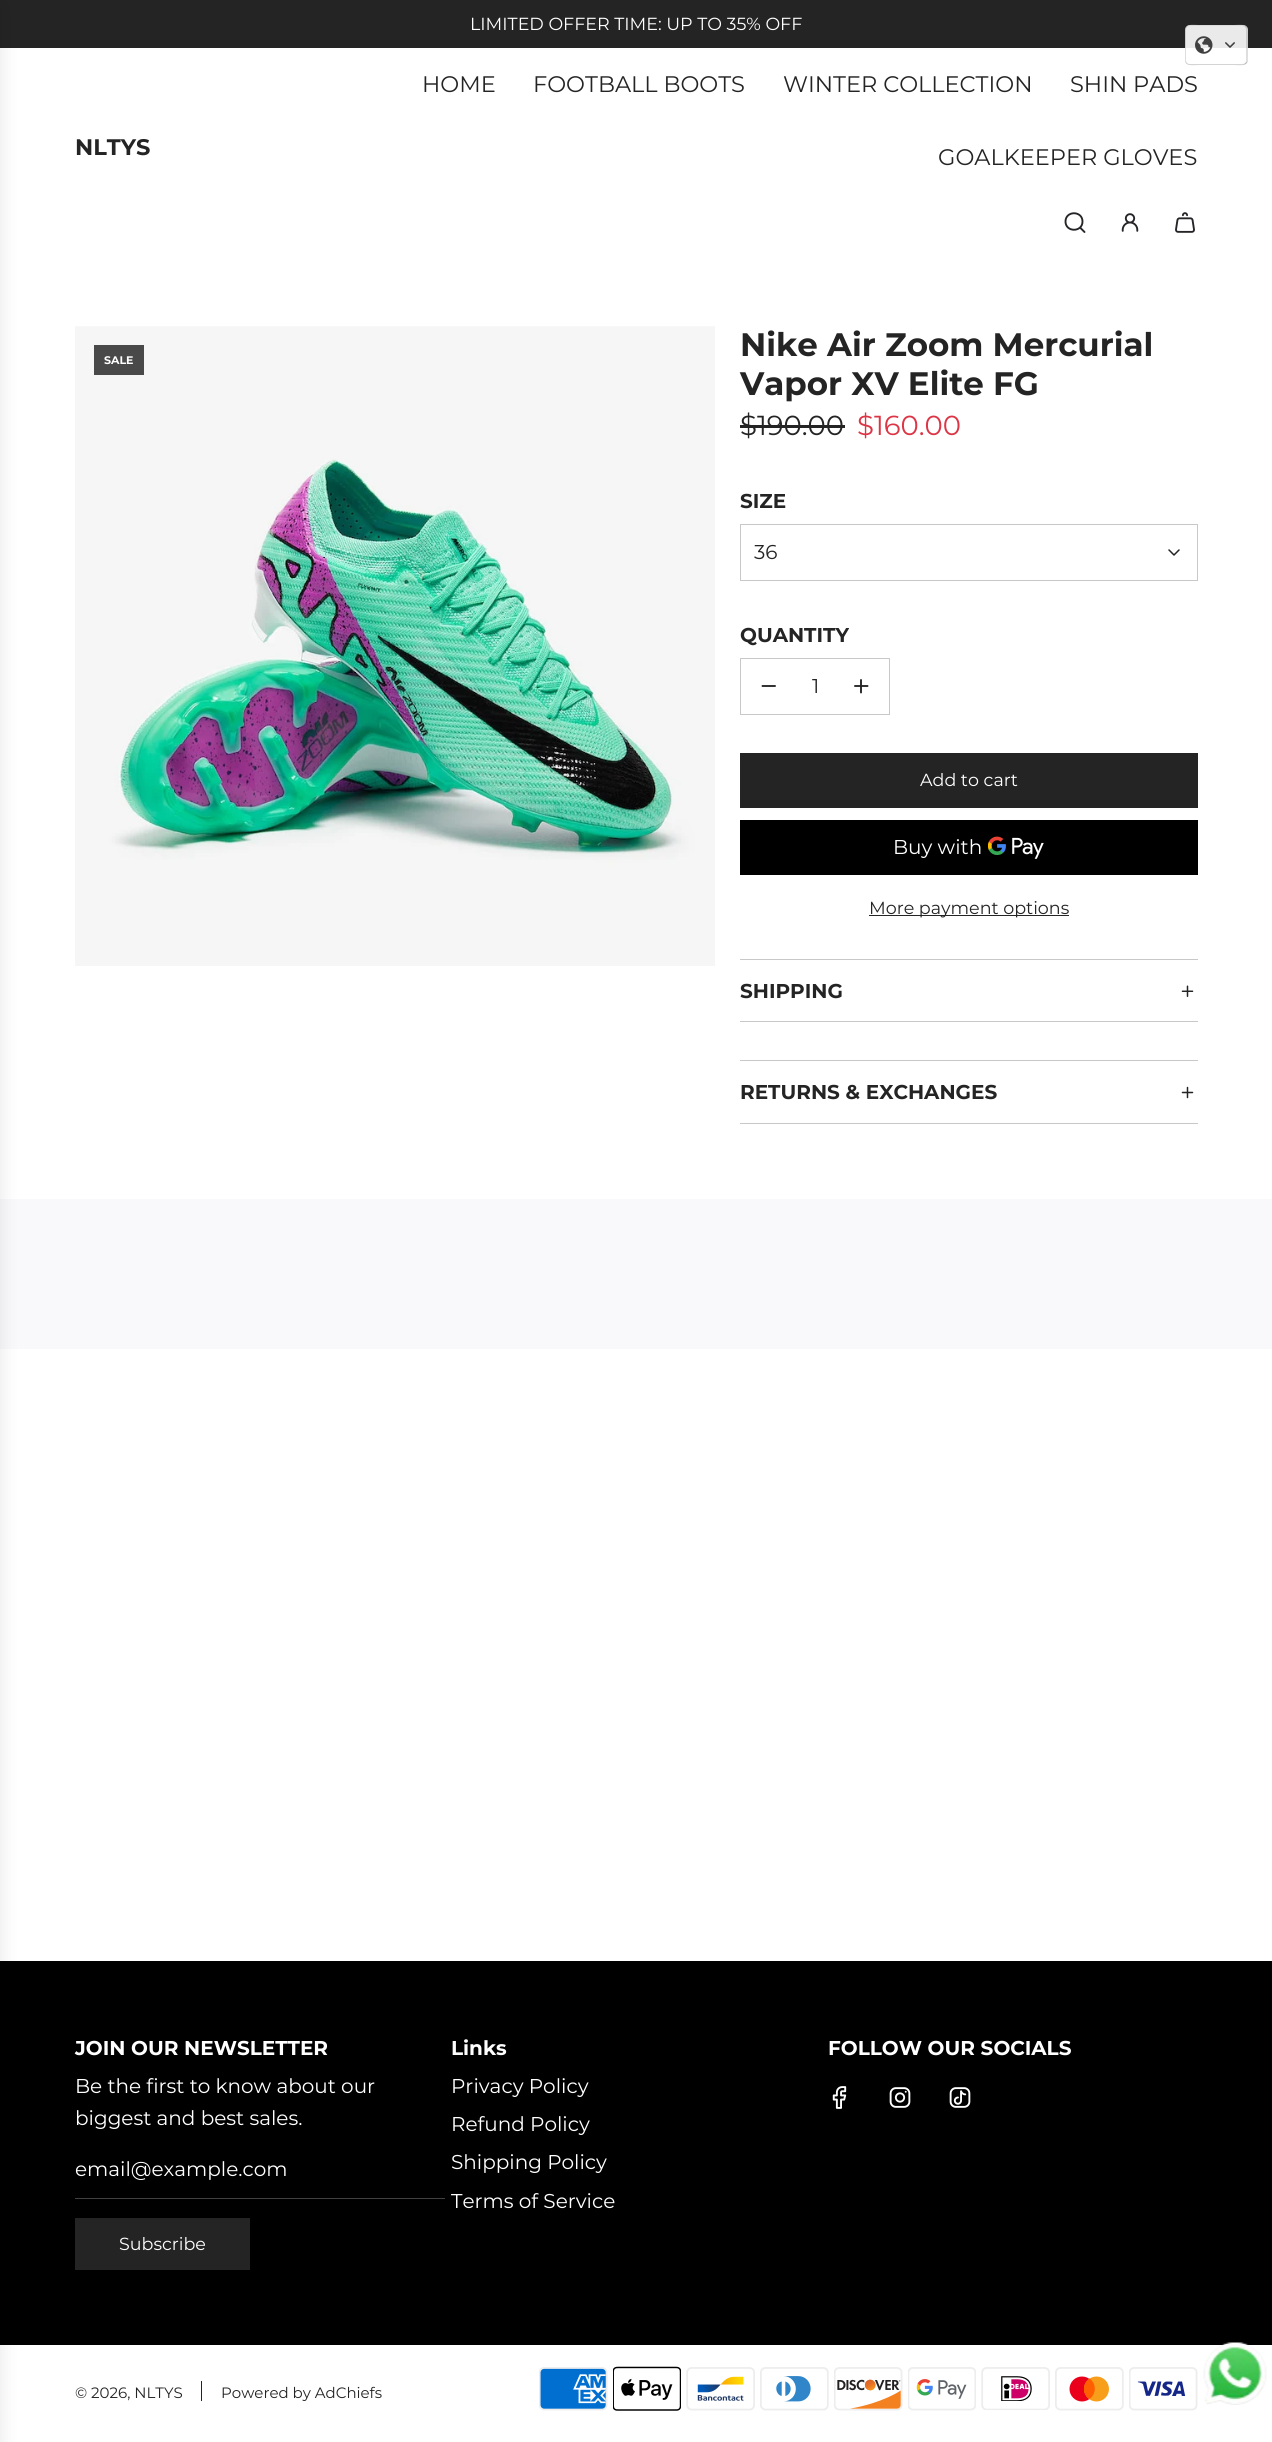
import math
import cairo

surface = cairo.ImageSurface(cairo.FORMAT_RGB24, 1272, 2442)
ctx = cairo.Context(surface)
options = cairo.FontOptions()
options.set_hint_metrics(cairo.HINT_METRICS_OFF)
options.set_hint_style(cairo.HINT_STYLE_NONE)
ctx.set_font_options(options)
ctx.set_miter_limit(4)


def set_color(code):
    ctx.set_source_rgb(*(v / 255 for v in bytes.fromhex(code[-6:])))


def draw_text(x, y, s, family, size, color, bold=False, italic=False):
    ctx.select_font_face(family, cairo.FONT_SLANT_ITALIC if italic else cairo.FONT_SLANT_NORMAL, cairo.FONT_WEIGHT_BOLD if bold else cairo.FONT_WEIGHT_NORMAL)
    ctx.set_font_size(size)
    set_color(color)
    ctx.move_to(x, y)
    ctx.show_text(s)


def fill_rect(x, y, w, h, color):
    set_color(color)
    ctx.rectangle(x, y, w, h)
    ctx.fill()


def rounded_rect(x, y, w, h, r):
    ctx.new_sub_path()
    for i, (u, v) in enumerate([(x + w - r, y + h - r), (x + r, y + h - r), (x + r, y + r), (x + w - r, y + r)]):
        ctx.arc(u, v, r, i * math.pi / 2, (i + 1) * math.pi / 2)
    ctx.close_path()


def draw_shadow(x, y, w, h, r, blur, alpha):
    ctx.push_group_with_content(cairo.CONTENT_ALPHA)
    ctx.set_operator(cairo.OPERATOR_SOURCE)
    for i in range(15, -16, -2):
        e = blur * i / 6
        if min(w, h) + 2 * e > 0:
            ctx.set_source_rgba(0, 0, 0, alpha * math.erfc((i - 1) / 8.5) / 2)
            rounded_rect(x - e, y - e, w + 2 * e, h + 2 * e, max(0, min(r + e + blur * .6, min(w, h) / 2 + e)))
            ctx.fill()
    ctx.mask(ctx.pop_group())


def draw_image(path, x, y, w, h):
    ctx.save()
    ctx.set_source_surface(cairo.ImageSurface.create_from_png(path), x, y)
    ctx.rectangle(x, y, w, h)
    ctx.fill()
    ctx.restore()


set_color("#ffffff")
ctx.paint()
fill_rect(0, 0, 1272, 48, "#242424")
draw_text(470, 30, "LIMITED OFFER TIME: UP TO 35% OFF", "Montserrat", 17.5, "#ffffff")
fill_rect(0, 1199, 1272, 150, "#f9f9fb")
fill_rect(0, 1961, 1272, 384, "#000000")
set_color("#000000")
draw_shadow(-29, 6, 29, 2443, 0, 9.5, 0.1)
draw_text(75, 155, "NLTYS", "Montserrat", 22.5, "#242424", bold=True)
draw_text(422, 92, "HOME", "Montserrat", 22.5, "#242424")
draw_text(533, 92, "FOOTBALL BOOTS", "Montserrat", 22.5, "#242424")
draw_text(783, 92, "WINTER COLLECTION", "Montserrat", 22.5, "#242424")
draw_text(1070, 92, "SHIN PADS", "Montserrat", 22.5, "#242424")
draw_text(938, 165, "GOALKEEPER GLOVES", "Montserrat", 22.5, "#242424")
ctx.new_path()
ctx.move_to(1080, 227.5)
ctx.line_to(1084.5, 232)
ctx.move_to(1065.5, 221.5)
ctx.curve_to(1065.5, 232.5, 1082.5, 232.5, 1082.5, 221.5)
ctx.curve_to(1082.5, 210.5, 1065.5, 210.5, 1065.5, 221.5)
ctx.close_path()
set_color("#262428")
ctx.set_line_width(1.9)
ctx.set_line_cap(cairo.LINE_CAP_ROUND)
ctx.set_line_join(cairo.LINE_JOIN_ROUND)
ctx.stroke()
draw_image("assets/img1.png", 1121, 213, 18, 19)
draw_image("assets/img2.png", 1175, 212, 20, 21)
draw_image("assets/img3.png", 75, 326, 640, 640)
fill_rect(94, 345, 50, 30, "#494949")
draw_text(104, 364, "SALE", "Montserrat", 11, "#ffffff", bold=True)
draw_text(740, 356, "Nike Air Zoom Mercurial", "Montserrat", 32.5, "#242424", bold=True)
draw_text(740, 395, "Vapor XV Elite FG", "Montserrat", 32.5, "#242424", bold=True)
draw_text(740, 435, "$190.00", "Montserrat", 27.5, "#242424")
fill_rect(740, 425, 105, 3, "#242424")
draw_text(857, 435, "$160.00", "Montserrat", 27.5, "#dc3545")
draw_text(740, 508, "SIZE", "Montserrat", 20, "#242424", bold=True)
ctx.rectangle(740.5, 524.5, 457, 56)
set_color("#c8c8c8")
ctx.set_line_width(1)
ctx.set_line_cap(cairo.LINE_CAP_BUTT)
ctx.set_line_join(cairo.LINE_JOIN_MITER)
ctx.stroke()
draw_text(754, 559, "36", "Montserrat", 20, "#242424")
ctx.new_path()
ctx.move_to(1169, 550)
ctx.line_to(1174, 555)
ctx.line_to(1179, 550)
ctx.set_line_width(1.5)
ctx.set_line_cap(cairo.LINE_CAP_ROUND)
ctx.set_line_join(cairo.LINE_JOIN_ROUND)
ctx.stroke()
draw_text(740, 642, "QUANTITY", "Montserrat", 20, "#242424", bold=True)
ctx.rectangle(740.5, 658.5, 149, 56)
set_color("#c8c8c8")
ctx.set_line_width(1)
ctx.set_line_cap(cairo.LINE_CAP_BUTT)
ctx.set_line_join(cairo.LINE_JOIN_MITER)
ctx.stroke()
ctx.new_path()
ctx.move_to(762.5, 686)
ctx.line_to(775, 686)
set_color("#242424")
ctx.set_line_width(1.9)
ctx.set_line_cap(cairo.LINE_CAP_ROUND)
ctx.set_line_join(cairo.LINE_JOIN_ROUND)
ctx.stroke()
draw_text(812, 693, "1", "Montserrat", 20, "#242424")
ctx.new_path()
ctx.move_to(855, 686)
ctx.line_to(861, 686)
ctx.move_to(861, 686)
ctx.line_to(867.5, 686)
ctx.move_to(861, 686)
ctx.line_to(861, 680)
ctx.move_to(861, 686)
ctx.line_to(861, 692.5)
ctx.stroke()
fill_rect(740, 753, 458, 55, "#242424")
draw_text(920, 786, "Add to cart", "Montserrat", 17.5, "#ffffff")
fill_rect(740, 820, 458, 55, "#000000")
draw_text(893, 854, "Buy with", "Montserrat", 20, "#ffffff")
draw_image("assets/img4.png", 988, 836, 56, 23)
fill_rect(869, 915, 200, 1, "#242424")
draw_text(869, 914, "More payment options", "Montserrat", 17.5, "#242424")
fill_rect(740, 959, 458, 1, "#c8c8c8")
fill_rect(740, 1021, 458, 1, "#c8c8c8")
draw_text(740, 998, "SHIPPING", "Montserrat", 20, "#242424", bold=True)
draw_image("assets/img5.png", 1181, 985, 13, 12)
fill_rect(740, 1060, 458, 1, "#c8c8c8")
fill_rect(740, 1123, 458, 1, "#c8c8c8")
draw_text(740, 1099, "RETURNS & EXCHANGES", "Montserrat", 20, "#242424", bold=True)
draw_image("assets/img6.png", 1181, 1086, 13, 13)
ctx.set_source_rgba(1, 1, 1, 0.9)
rounded_rect(1185, 25, 63, 40, 5)
ctx.fill()
ctx.set_source_rgba(0.8, 0.8, 0.8, 0.5)
ctx.new_path()
ctx.move_to(1190, 26)
ctx.line_to(1242, 26)
ctx.curve_to(1245, 26, 1248, 28, 1248, 31)
ctx.curve_to(1248, 23, 1240, 25, 1234, 25)
ctx.line_to(1199, 25)
ctx.curve_to(1193, 25, 1185, 23, 1185, 31)
ctx.curve_to(1185, 28, 1187, 26, 1190, 26)
ctx.close_path()
ctx.fill()
set_color("#d4d4d4")
ctx.new_path()
ctx.move_to(1185, 59)
ctx.curve_to(1185, 67, 1193, 65, 1199, 65)
ctx.line_to(1234, 65)
ctx.curve_to(1240, 65, 1248, 67, 1248, 59)
ctx.curve_to(1248, 62, 1245, 64, 1242, 64)
ctx.line_to(1190, 64)
ctx.curve_to(1187, 64, 1185, 62, 1185, 59)
ctx.close_path()
ctx.fill()
ctx.set_source_rgba(0, 0, 0, 0.13)
ctx.new_path()
ctx.move_to(1241, 65)
ctx.curve_to(1248, 65, 1248, 62, 1248, 55)
ctx.line_to(1248, 35)
ctx.curve_to(1248, 28, 1248, 25, 1241, 25)
ctx.curve_to(1244, 25, 1246, 27, 1246, 30)
ctx.line_to(1246, 60)
ctx.curve_to(1246, 63, 1244, 65, 1241, 65)
ctx.close_path()
ctx.move_to(1190, 25)
ctx.curve_to(1187, 25, 1185, 27, 1185, 30)
ctx.line_to(1185, 60)
ctx.curve_to(1185, 63, 1187, 65, 1190, 65)
ctx.line_to(1191, 65)
ctx.curve_to(1188, 65, 1186, 63, 1186, 60)
ctx.line_to(1186, 30)
ctx.curve_to(1186, 27, 1188, 25, 1191, 25)
ctx.close_path()
ctx.fill()
draw_image("assets/img7.png", 1195, 36, 18, 18)
draw_image("assets/img8.png", 1225, 42, 10, 6)
draw_text(75, 2055, "JOIN OUR NEWSLETTER", "Montserrat", 20, "#ffffff", bold=True)
draw_text(75, 2093, "Be the first to know about our", "Montserrat", 20, "#ffffff")
draw_text(75, 2125, "biggest and best sales.", "Montserrat", 20, "#ffffff")
fill_rect(75, 2198, 370, 1, "#404040")
draw_text(75, 2176, "email@example.com", "Montserrat", 20, "#ffffff")
fill_rect(75, 2218, 175, 52, "#242424")
draw_text(119, 2250, "Subscribe", "Montserrat", 17.5, "#ffffff")
draw_text(451, 2055, "Links", "Montserrat", 20, "#ffffff", bold=True)
draw_text(451, 2093, "Privacy Policy", "Montserrat", 20, "#ffffff")
draw_text(451, 2131, "Refund Policy", "Montserrat", 20, "#ffffff")
draw_text(451, 2169, "Shipping Policy", "Montserrat", 20, "#ffffff")
draw_text(451, 2208, "Terms of Service", "Montserrat", 20, "#ffffff")
draw_text(828, 2055, "FOLLOW OUR SOCIALS", "Montserrat", 20, "#ffffff", bold=True)
draw_image("assets/img9.png", 832, 2086, 15, 23)
draw_image("assets/img10.png", 889, 2087, 22, 21)
draw_image("assets/img11.png", 949, 2087, 22, 21)
draw_text(75, 2398, "© 2026, NLTYS", "Montserrat", 15, "#242424")
fill_rect(201, 2381, 1, 20, "#242424")
draw_text(221, 2398, "Powered by AdChiefs", "Montserrat", 15, "#242424")
draw_image("assets/img12.png", 539, 2367, 69, 44)
draw_image("assets/img13.png", 613, 2366, 68, 45)
draw_image("assets/img14.png", 686, 2367, 69, 44)
draw_image("assets/img15.png", 760, 2367, 69, 44)
draw_image("assets/img16.png", 834, 2367, 69, 44)
draw_image("assets/img17.png", 908, 2367, 68, 44)
draw_image("assets/img18.png", 981, 2367, 69, 43)
draw_image("assets/img19.png", 1055, 2367, 69, 44)
draw_image("assets/img20.png", 1129, 2367, 69, 44)
draw_image("assets/img21.png", 1203, 2342, 64, 63)
surface.write_to_png("output.png")
